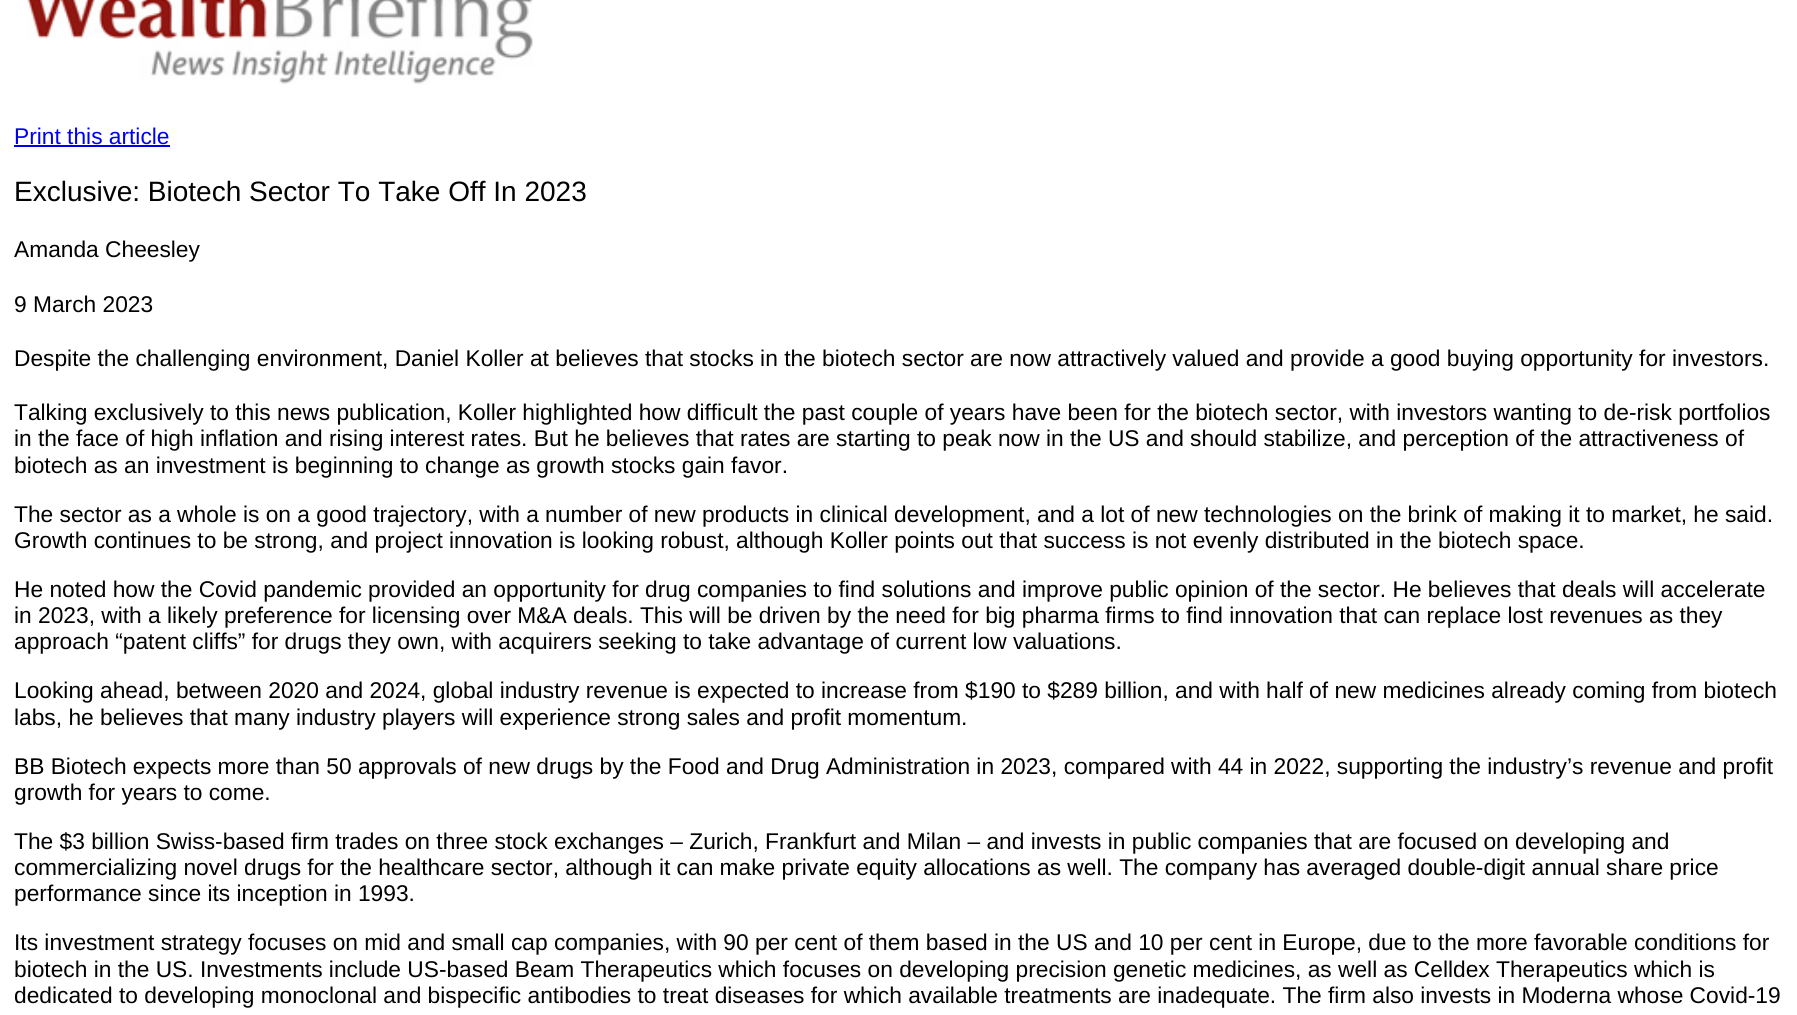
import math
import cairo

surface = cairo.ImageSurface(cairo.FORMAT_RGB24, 1797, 1015)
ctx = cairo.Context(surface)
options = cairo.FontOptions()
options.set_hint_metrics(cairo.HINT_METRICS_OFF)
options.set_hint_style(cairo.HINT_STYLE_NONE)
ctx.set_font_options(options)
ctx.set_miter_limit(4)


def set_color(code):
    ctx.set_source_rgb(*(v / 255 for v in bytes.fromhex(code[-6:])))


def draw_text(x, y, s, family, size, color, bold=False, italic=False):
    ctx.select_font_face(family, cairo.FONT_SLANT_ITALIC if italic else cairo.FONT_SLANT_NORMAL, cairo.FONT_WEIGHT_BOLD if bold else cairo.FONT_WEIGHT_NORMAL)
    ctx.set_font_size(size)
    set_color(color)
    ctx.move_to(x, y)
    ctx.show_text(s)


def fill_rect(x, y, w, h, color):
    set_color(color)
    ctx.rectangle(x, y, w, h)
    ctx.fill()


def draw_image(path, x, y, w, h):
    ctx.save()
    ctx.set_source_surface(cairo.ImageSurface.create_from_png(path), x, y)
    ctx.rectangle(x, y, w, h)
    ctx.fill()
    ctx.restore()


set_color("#ffffff")
ctx.paint()
draw_image("assets/img1.png", 27, 0, 506, 84)
draw_text(14, 144, "Print this article", "Liberation Sans", 22.75, "#0000ee")
fill_rect(14, 145, 156, 2, "#0000ee")
draw_text(14, 201, "Exclusive: Biotech Sector To Take Off In 2023", "Liberation Sans", 28, "#000000")
draw_text(14, 257, "Amanda Cheesley", "Liberation Sans", 22.75, "#000000")
draw_text(14, 312, "9 March 2023", "Liberation Sans", 22.75, "#000000")
draw_text(14, 366, "Despite the challenging environment, Daniel Koller at believes that stocks in the biotech sector are now attractively valued and provide a good buying opportunity for investors.", "Liberation Sans", 22.75, "#000000")
draw_text(14, 420, "Talking exclusively to this news publication, Koller highlighted how difficult the past couple of years have been for the biotech sector, with investors wanting to de-risk portfolios", "Liberation Sans", 22.75, "#000000")
draw_text(14, 446, "in the face of high inflation and rising interest rates. But he believes that rates are starting to peak now in the US and should stabilize, and perception of the attractiveness of", "Liberation Sans", 22.75, "#000000")
draw_text(14, 473, "biotech as an investment is beginning to change as growth stocks gain favor.", "Liberation Sans", 22.75, "#000000")
draw_text(14, 522, "The sector as a whole is on a good trajectory, with a number of new products in clinical development, and a lot of new technologies on the brink of making it to market, he said.", "Liberation Sans", 22.75, "#000000")
draw_text(14, 548, "Growth continues to be strong, and project innovation is looking robust, although Koller points out that success is not evenly distributed in the biotech space.", "Liberation Sans", 22.75, "#000000")
draw_text(14, 597, "He noted how the Covid pandemic provided an opportunity for drug companies to find solutions and improve public opinion of the sector. He believes that deals will accelerate", "Liberation Sans", 22.75, "#000000")
draw_text(14, 623, "in 2023, with a likely preference for licensing over M&A deals. This will be driven by the need for big pharma firms to find innovation that can replace lost revenues as they", "Liberation Sans", 22.75, "#000000")
draw_text(14, 649, "approach “patent cliffs” for drugs they own, with acquirers seeking to take advantage of current low valuations.", "Liberation Sans", 22.75, "#000000")
draw_text(14, 698, "Looking ahead, between 2020 and 2024, global industry revenue is expected to increase from $190 to $289 billion, and with half of new medicines already coming from biotech", "Liberation Sans", 22.75, "#000000")
draw_text(14, 725, "labs, he believes that many industry players will experience strong sales and profit momentum.", "Liberation Sans", 22.75, "#000000")
draw_text(14, 774, "BB Biotech expects more than 50 approvals of new drugs by the Food and Drug Administration in 2023, compared with 44 in 2022, supporting the industry’s revenue and profit", "Liberation Sans", 22.75, "#000000")
draw_text(14, 800, "growth for years to come.", "Liberation Sans", 22.75, "#000000")
draw_text(14, 849, "The $3 billion Swiss-based firm trades on three stock exchanges – Zurich, Frankfurt and Milan – and invests in public companies that are focused on developing and", "Liberation Sans", 22.75, "#000000")
draw_text(14, 875, "commercializing novel drugs for the healthcare sector, although it can make private equity allocations as well. The company has averaged double-digit annual share price", "Liberation Sans", 22.75, "#000000")
draw_text(14, 901, "performance since its inception in 1993.", "Liberation Sans", 22.75, "#000000")
draw_text(14, 950, "Its investment strategy focuses on mid and small cap companies, with 90 per cent of them based in the US and 10 per cent in Europe, due to the more favorable conditions for", "Liberation Sans", 22.75, "#000000")
draw_text(14, 977, "biotech in the US. Investments include US-based Beam Therapeutics which focuses on developing precision genetic medicines, as well as Celldex Therapeutics which is", "Liberation Sans", 22.75, "#000000")
draw_text(14, 1003, "dedicated to developing monoclonal and bispecific antibodies to treat diseases for which available treatments are inadequate. The firm also invests in Moderna whose Covid-19", "Liberation Sans", 22.75, "#000000")
surface.write_to_png("output.png")
